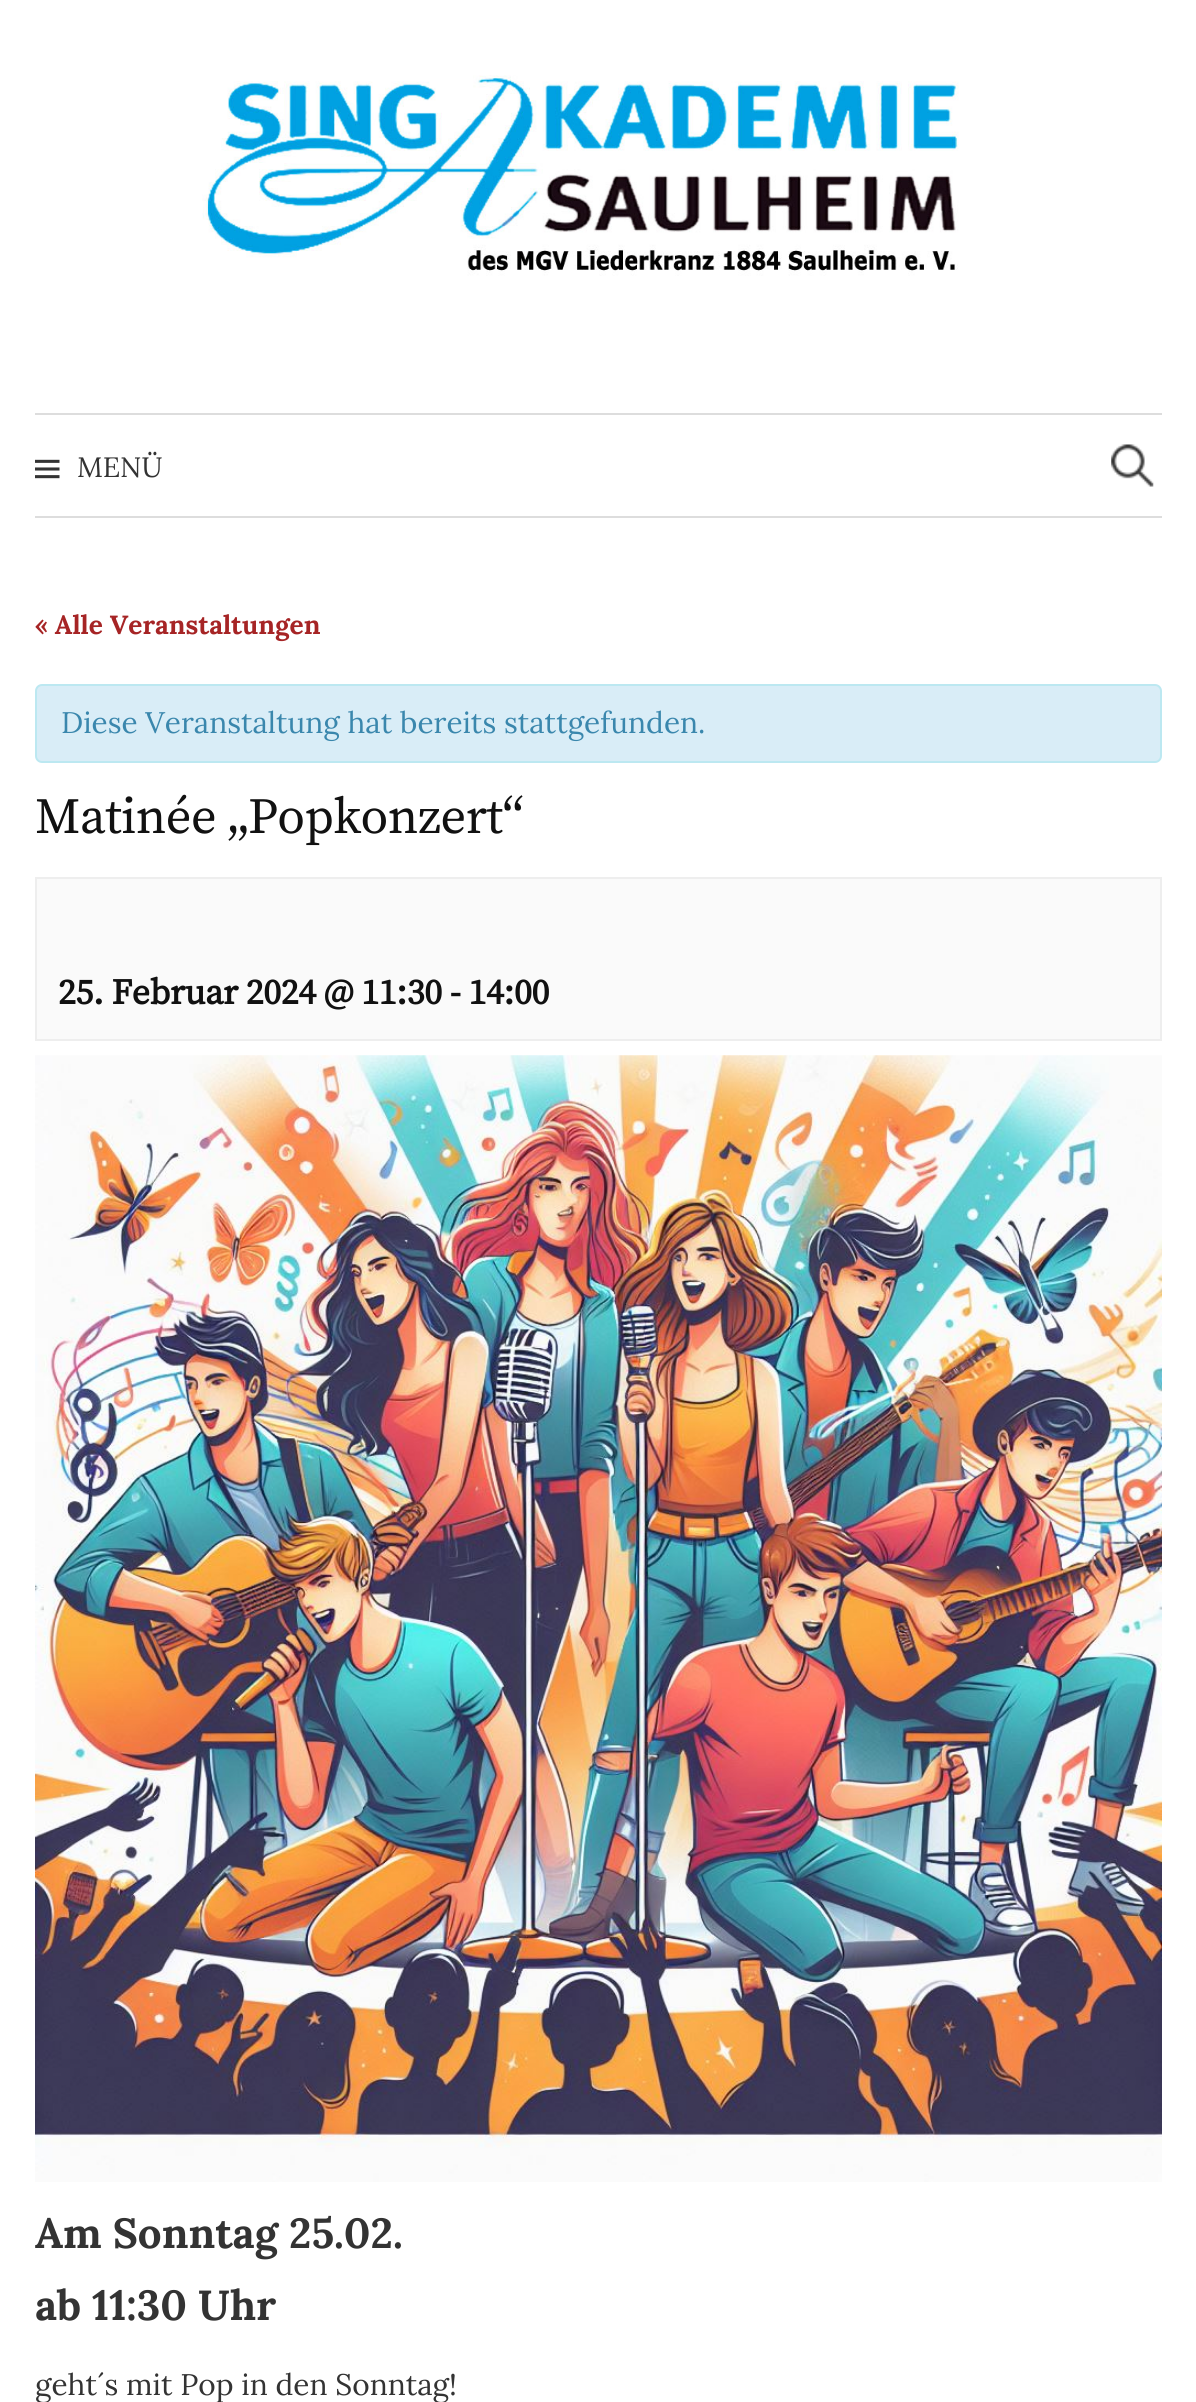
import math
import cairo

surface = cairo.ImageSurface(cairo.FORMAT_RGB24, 1196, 2402)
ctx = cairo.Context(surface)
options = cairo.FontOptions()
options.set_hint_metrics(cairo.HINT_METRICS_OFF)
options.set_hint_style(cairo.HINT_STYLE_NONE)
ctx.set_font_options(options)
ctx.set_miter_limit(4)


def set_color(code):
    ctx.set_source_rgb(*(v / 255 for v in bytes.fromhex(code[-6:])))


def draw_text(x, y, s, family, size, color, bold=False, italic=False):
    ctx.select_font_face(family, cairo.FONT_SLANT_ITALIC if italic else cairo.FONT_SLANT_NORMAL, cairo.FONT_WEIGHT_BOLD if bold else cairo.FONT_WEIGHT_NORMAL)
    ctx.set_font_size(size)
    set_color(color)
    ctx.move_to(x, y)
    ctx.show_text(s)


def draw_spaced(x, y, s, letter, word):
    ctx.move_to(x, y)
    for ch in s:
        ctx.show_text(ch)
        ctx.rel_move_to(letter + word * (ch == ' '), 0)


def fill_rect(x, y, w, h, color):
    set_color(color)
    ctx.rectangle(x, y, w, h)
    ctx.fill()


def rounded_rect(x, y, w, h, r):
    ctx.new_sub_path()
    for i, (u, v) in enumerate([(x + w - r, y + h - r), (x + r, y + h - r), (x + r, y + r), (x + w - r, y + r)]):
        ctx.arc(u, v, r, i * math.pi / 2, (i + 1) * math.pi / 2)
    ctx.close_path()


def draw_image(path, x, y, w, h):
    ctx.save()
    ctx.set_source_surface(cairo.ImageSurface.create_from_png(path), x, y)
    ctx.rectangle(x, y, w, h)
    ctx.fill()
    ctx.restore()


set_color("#ffffff")
ctx.paint()
draw_image("assets/img1.png", 202, 75, 757, 201)
fill_rect(35, 413, 1127, 2, "#dddddd")
fill_rect(35, 516, 1127, 2, "#dddddd")
draw_image("assets/img2.png", 35, 459, 25, 20)
draw_text(77, 477, "MENÜ", "Lora", 28, "#333333")
draw_image("assets/img3.png", 1111, 444, 43, 43)
draw_text(35, 634, "« Alle Veranstaltungen", "Lora", 26.25, "#a62425", bold=True)
set_color("#d9edf7")
rounded_rect(36, 685, 1125, 77, 6)
ctx.fill_preserve()
set_color("#bce8f1")
ctx.stroke()
draw_text(61, 733, "Diese Veranstaltung hat bereits stattgefunden.", "Lora", 29.75, "#3a87ad")
ctx.select_font_face("Source Serif Pro")
ctx.set_font_size(50.5)
set_color("#111111")
draw_spaced(35, 833, "Matinée „Popkonzert“", -0.5, 0)
set_color("#fafafa")
ctx.rectangle(36, 878, 1125, 162)
ctx.fill_preserve()
set_color("#eeeeee")
ctx.stroke()
ctx.select_font_face("Source Serif Pro", cairo.FONT_SLANT_NORMAL, cairo.FONT_WEIGHT_BOLD)
ctx.set_font_size(35.75)
set_color("#111111")
draw_spaced(58, 1004, "25. Februar 2024 @ 11:30 - 14:00", -0.35, 0)
draw_image("assets/img4.png", 35, 1055, 1127, 1127)
draw_text(35, 2248, "Am Sonntag 25.02.", "Lora", 42, "#333333", bold=True)
draw_text(35, 2320, "ab 11:30 Uhr", "Lora", 42, "#333333", bold=True)
draw_text(35, 2395, "geht´s mit Pop in den Sonntag!", "Lora", 29.75, "#333333")
surface.write_to_png("output.png")
